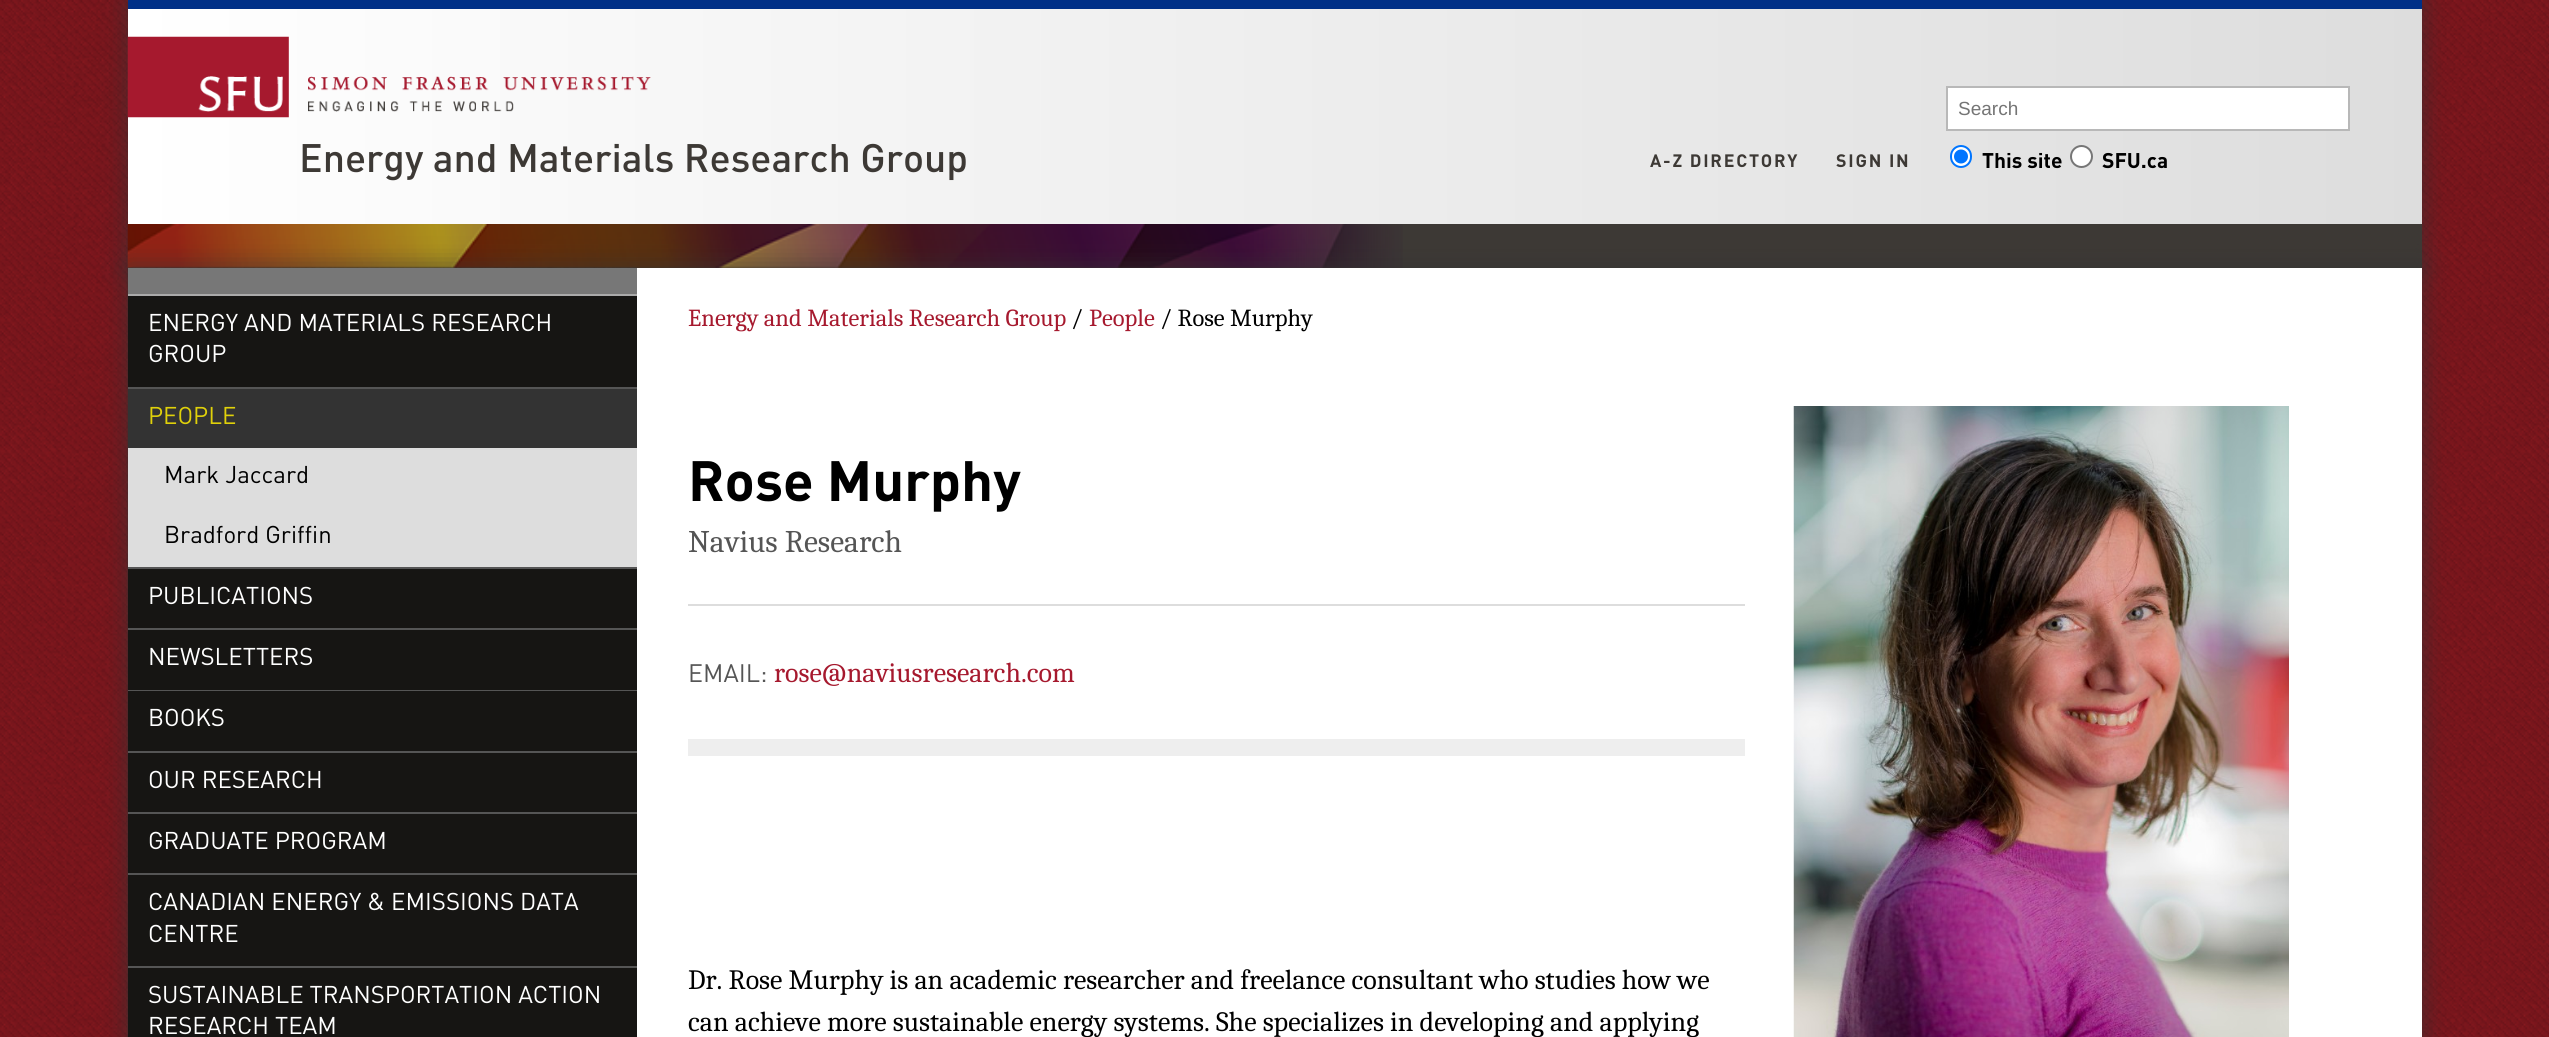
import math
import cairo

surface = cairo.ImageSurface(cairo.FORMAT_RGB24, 2549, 1037)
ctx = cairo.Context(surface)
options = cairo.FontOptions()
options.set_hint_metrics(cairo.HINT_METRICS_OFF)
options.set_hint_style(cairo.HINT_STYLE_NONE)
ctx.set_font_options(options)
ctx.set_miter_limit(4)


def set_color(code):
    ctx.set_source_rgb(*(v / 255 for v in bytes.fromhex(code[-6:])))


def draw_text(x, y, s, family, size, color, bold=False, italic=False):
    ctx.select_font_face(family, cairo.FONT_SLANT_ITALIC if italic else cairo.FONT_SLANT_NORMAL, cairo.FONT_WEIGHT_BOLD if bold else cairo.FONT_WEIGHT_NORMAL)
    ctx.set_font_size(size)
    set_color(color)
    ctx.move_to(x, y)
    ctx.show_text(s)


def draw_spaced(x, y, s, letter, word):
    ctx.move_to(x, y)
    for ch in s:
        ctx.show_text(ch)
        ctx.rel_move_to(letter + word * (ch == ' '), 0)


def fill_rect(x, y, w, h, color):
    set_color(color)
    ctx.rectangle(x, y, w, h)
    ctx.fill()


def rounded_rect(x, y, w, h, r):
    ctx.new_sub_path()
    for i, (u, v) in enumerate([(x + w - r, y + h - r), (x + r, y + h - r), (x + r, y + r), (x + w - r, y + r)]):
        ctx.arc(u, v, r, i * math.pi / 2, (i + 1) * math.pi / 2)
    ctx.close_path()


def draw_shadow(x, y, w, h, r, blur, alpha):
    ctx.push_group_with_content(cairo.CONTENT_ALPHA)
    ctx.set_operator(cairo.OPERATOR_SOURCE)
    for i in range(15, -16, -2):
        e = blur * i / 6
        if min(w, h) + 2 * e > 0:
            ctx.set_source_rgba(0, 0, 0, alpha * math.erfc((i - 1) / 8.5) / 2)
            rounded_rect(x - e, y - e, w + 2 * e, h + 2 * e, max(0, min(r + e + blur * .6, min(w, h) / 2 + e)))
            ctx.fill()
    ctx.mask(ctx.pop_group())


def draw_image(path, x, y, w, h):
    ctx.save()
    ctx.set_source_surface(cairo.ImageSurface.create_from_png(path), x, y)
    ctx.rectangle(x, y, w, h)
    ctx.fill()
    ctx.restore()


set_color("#ffffff")
ctx.paint()
draw_image("assets/img1.png", 0, 0, 2549, 1037)
set_color("#323232")
draw_shadow(128, 0, 2294, 268, 0, 13, 0.75)
gradient = cairo.LinearGradient(128, 116, 2422, 116)
gradient.add_color_stop_rgba(0, 1, 1, 1, 1)
gradient.add_color_stop_rgba(1, 0.867, 0.867, 0.867, 1)
ctx.set_source(gradient)
ctx.rectangle(128, 9, 2294, 215)
ctx.fill()
fill_rect(128, 0, 2294, 9, "#003087")
draw_image("assets/img2.png", 127, 36, 524, 82)
draw_text(299, 172, "Energy and Materials Research Group", "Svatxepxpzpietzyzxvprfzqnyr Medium", 39.25, "#3d3935")
ctx.select_font_face("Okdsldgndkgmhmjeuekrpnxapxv", cairo.FONT_SLANT_NORMAL, cairo.FONT_WEIGHT_BOLD)
ctx.set_font_size(17.75)
draw_spaced(1650, 167, "A-Z DIRECTORY", 1.75, 0)
draw_spaced(1836, 167, "SIGN IN", 1.75, 0)
set_color("#ffffff")
ctx.rectangle(1947, 87, 402, 43)
ctx.fill_preserve()
set_color("#b8b8b8")
ctx.stroke()
draw_text(1958, 115, "Search", "Liberation Sans", 19, "#757575")
set_color("#ffffff")
rounded_rect(1951, 146, 20, 21, 10)
ctx.fill_preserve()
set_color("#0075ff")
ctx.stroke()
ctx.arc(1961, 156.5, 7, 0, 2 * math.pi)
ctx.fill()
draw_text(1982, 168, "This site", "Okdsldgndkgmhmjeuekrpnxapxv", 21, "#000000", bold=True)
set_color("#ffffff")
ctx.new_path()
ctx.arc(2081.5, 156.5, 10.5, 0, 2 * math.pi)
ctx.fill_preserve()
set_color("#767676")
ctx.stroke()
draw_text(2102, 168, "SFU.ca", "Okdsldgndkgmhmjeuekrpnxapxv", 21, "#000000", bold=True)
fill_rect(128, 224, 2294, 44, "#3d3935")
draw_image("assets/img3.png", 127, 224, 1276, 44)
set_color("#323232")
draw_shadow(128, 268, 2294, 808, 0, 13, 0.75)
fill_rect(637, 268, 1785, 769, "#ffffff")
draw_image("assets/img4.png", 127, 267, 510, 770)
fill_rect(128, 268, 509, 26, "#777777")
fill_rect(128, 296, 509, 91, "#161513")
fill_rect(128, 294, 509, 2, "#aaaaaa")
fill_rect(128, 387, 509, 2, "#555555")
draw_text(148, 331, "ENERGY AND MATERIALS RESEARCH", "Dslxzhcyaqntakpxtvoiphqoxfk", 24, "#ffffff")
draw_text(148, 362, "GROUP", "Dslxzhcyaqntakpxtvoiphqoxfk", 24, "#ffffff")
fill_rect(128, 389, 509, 59, "#333333")
fill_rect(128, 567, 509, 2, "#555555")
draw_text(148, 424, "PEOPLE", "Dslxzhcyaqntakpxtvoiphqoxfk", 24, "#e0d10a")
fill_rect(128, 448, 509, 119, "#dddddd")
draw_text(164, 483, "Mark Jaccard", "Dslxzhcyaqntakpxtvoiphqoxfk", 24, "#000000")
draw_text(164, 543, "Bradford Griffin", "Dslxzhcyaqntakpxtvoiphqoxfk", 24, "#000000")
fill_rect(128, 569, 509, 59, "#161513")
fill_rect(128, 628, 509, 2, "#555555")
draw_text(148, 604, "PUBLICATIONS", "Dslxzhcyaqntakpxtvoiphqoxfk", 24, "#ffffff")
fill_rect(128, 630, 509, 60, "#161513")
fill_rect(128, 690, 509, 1, "#555555")
draw_text(148, 665, "NEWSLETTERS", "Dslxzhcyaqntakpxtvoiphqoxfk", 24, "#ffffff")
fill_rect(128, 691, 509, 60, "#161513")
fill_rect(128, 751, 509, 2, "#555555")
draw_text(148, 726, "BOOKS", "Dslxzhcyaqntakpxtvoiphqoxfk", 24, "#ffffff")
fill_rect(128, 753, 509, 59, "#161513")
fill_rect(128, 812, 509, 2, "#555555")
draw_text(148, 788, "OUR RESEARCH", "Dslxzhcyaqntakpxtvoiphqoxfk", 24, "#ffffff")
fill_rect(128, 814, 509, 59, "#161513")
fill_rect(128, 873, 509, 2, "#555555")
draw_text(148, 849, "GRADUATE PROGRAM", "Dslxzhcyaqntakpxtvoiphqoxfk", 24, "#ffffff")
fill_rect(128, 875, 509, 91, "#161513")
fill_rect(128, 966, 509, 2, "#555555")
draw_text(148, 910, "CANADIAN ENERGY & EMISSIONS DATA", "Dslxzhcyaqntakpxtvoiphqoxfk", 24, "#ffffff")
draw_text(148, 942, "CENTRE", "Dslxzhcyaqntakpxtvoiphqoxfk", 24, "#ffffff")
fill_rect(128, 968, 509, 69, "#161513")
draw_text(148, 1003, "SUSTAINABLE TRANSPORTATION ACTION", "Dslxzhcyaqntakpxtvoiphqoxfk", 24, "#ffffff")
draw_text(148, 1034, "RESEARCH TEAM", "Dslxzhcyaqntakpxtvoiphqoxfk", 24, "#ffffff")
draw_text(688, 326, "Energy and Materials Research Group", "Caladea", 24.5, "#a6192e")
draw_text(1071, 326, "/", "Caladea", 24.5, "#000000")
draw_text(1089, 326, "People", "Caladea", 24.5, "#a6192e")
draw_text(1160, 326, "/ Rose Murphy", "Caladea", 24.5, "#000000")
fill_rect(688, 739, 1057, 17, "#eeeeee")
draw_text(688, 501, "Rose Murphy", "Okdsldgndkgmhmjeuekrpnxapxv", 56, "#000000", bold=True)
draw_text(688, 552, "Navius Research", "Caladea", 31.5, "#555555")
fill_rect(688, 604, 1057, 2, "#dddddd")
draw_text(688, 682, "EMAIL:", "Dslxzhcyaqntakpxtvoiphqoxfk", 25, "#555555")
draw_text(774, 682, "rose@naviusresearch.com", "Caladea", 28, "#a6192e")
draw_image("assets/img5.png", 1793, 406, 496, 631)
draw_text(688, 989, "Dr. Rose Murphy is an academic researcher and freelance consultant who studies how we", "Caladea", 28, "#000000")
draw_text(688, 1031, "can achieve more sustainable energy systems. She specializes in developing and applying", "Caladea", 28, "#000000")
surface.write_to_png("output.png")
